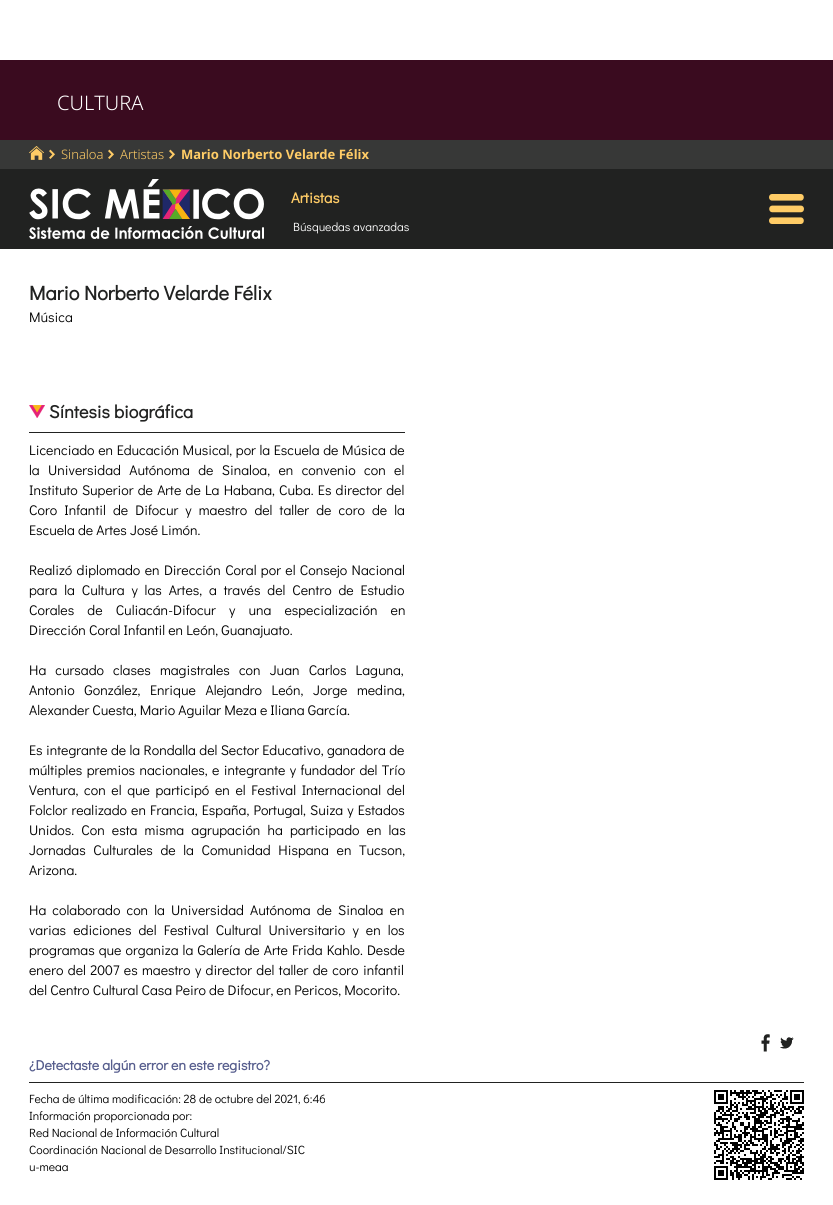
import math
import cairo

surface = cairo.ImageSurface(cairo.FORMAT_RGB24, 833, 1205)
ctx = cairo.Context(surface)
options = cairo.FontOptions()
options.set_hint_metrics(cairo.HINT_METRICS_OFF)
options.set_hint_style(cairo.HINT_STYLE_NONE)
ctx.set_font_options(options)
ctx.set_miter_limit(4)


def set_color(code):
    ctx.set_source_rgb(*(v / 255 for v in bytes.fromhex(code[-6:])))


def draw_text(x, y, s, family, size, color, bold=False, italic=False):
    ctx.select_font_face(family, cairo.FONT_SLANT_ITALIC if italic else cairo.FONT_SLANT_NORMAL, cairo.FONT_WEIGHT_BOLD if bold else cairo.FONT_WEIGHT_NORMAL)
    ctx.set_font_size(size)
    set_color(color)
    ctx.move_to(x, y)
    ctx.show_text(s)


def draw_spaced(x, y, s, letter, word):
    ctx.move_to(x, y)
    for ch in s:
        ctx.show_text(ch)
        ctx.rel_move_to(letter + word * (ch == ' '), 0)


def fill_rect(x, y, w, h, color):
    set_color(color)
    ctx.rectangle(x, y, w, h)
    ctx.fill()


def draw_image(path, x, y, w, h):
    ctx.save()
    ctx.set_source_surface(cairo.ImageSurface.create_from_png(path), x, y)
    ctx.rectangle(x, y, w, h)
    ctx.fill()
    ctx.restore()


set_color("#ffffff")
ctx.paint()
fill_rect(0, 60, 833, 80, "#3a0b1f")
draw_text(57, 110, "CULTURA", "Noto Sans Light", 20, "#ffffff")
fill_rect(0, 140, 833, 29, "#373837")
draw_image("assets/img1.png", 29, 146, 15, 14)
draw_image("assets/img2.png", 49, 149, 6, 10)
draw_text(61, 159, "Sinaloa", "Noto Sans Light", 13, "#ffcc66")
draw_image("assets/img2.png", 108, 149, 6, 10)
draw_text(120, 159, "Artistas", "Noto Sans Light", 13, "#ffcc66")
draw_image("assets/img2.png", 169, 149, 6, 10)
draw_text(181, 159, "Mario Norberto Velarde Félix", "Noto Sans", 13, "#ffcc66", bold=True)
fill_rect(0, 169, 833, 80, "#212221")
draw_image("assets/img3.png", 29, 179, 235, 60)
draw_text(291, 203, "Artistas", "Didact Gothic", 15, "#ffcc66", bold=True)
draw_text(293, 231, "Búsquedas avanzadas", "Didact Gothic", 12, "#ffffff")
draw_image("assets/img4.png", 769, 194, 35, 30)
draw_text(29, 300, "Mario Norberto Velarde Félix", "Didact Gothic", 20, "#212221", bold=True)
draw_text(29, 322, "Música", "Didact Gothic", 14, "#000000")
draw_image("assets/img5.png", 29, 405, 16, 13)
draw_text(49, 418, "Síntesis biográfica", "Didact Gothic", 18, "#212221", bold=True)
fill_rect(29, 432, 376, 1, "#212221")
ctx.select_font_face("Didact Gothic")
ctx.set_font_size(14)
set_color("#000000")
draw_spaced(29, 455, "Licenciado en Educación Musical, por la Escuela de Música de", 0, 0.5)
draw_spaced(29, 475, "la Universidad Autónoma de Sinaloa, en convenio con el", 0, 5.25)
draw_spaced(29, 495, "Instituto Superior de Arte de La Habana, Cuba. Es director del", 0, 1.1)
draw_spaced(29, 515, "Coro Infantil de Difocur y maestro del taller de coro de la", 0, 4)
draw_text(29, 535, "Escuela de Artes José Limón.", "Didact Gothic", 14, "#000000")
draw_spaced(29, 575, "Realizó diplomado en Dirección Coral por el Consejo Nacional", 0, 1.25)
draw_spaced(29, 595, "para la Cultura y las Artes, a través del Centro de Estudio", 0, 3.75)
draw_spaced(29, 615, "Corales de Culiacán-Difocur y una especialización en", 0, 10)
draw_text(29, 635, "Dirección Coral Infantil en León, Guanajuato.", "Didact Gothic", 14, "#000000")
draw_spaced(29, 675, "Ha cursado clases magistrales con Juan Carlos Laguna,", 0, 6)
draw_spaced(29, 695, "Antonio González, Enrique Alejandro León, Jorge medina,", 0, 6.5)
draw_text(29, 715, "Alexander Cuesta, Mario Aguilar Meza e Iliana García.", "Didact Gothic", 14, "#000000")
draw_spaced(29, 755, "Es integrante de la Rondalla del Sector Educativo, ganadora de", 0, 0.25)
draw_spaced(29, 775, "múltiples premios nacionales, e integrante y fundador del Trío", 0, 1.25)
draw_spaced(29, 795, "Ventura, con el que participó en el Festival Internacional del", 0, 2.5)
draw_spaced(29, 815, "Folclor realizado en Francia, España, Portugal, Suiza y Estados", 0, 1)
draw_spaced(29, 835, "Unidos. Con esta misma agrupación ha participado en las", 0, 4)
draw_spaced(29, 855, "Jornadas Culturales de la Comunidad Hispana en Tucson,", 0, 4.5)
draw_text(29, 875, "Arizona.", "Didact Gothic", 14, "#000000")
draw_spaced(29, 915, "Ha colaborado con la Universidad Autónoma de Sinaloa en", 0, 3)
draw_spaced(29, 935, "varias ediciones del Festival Cultural Universitario y en los", 0, 4)
draw_spaced(29, 955, "programas que organiza la Galería de Arte Frida Kahlo. Desde", 0, 1)
draw_spaced(29, 975, "enero del 2007 es maestro y director del taller de coro infantil", 0, 1.25)
draw_text(29, 995, "del Centro Cultural Casa Peiro de Difocur, en Pericos, Mocorito.", "Didact Gothic", 14, "#000000")
draw_image("assets/img6.png", 761, 1034, 9, 18)
draw_image("assets/img7.png", 780, 1037, 14, 12)
draw_text(29, 1070, "¿Detectaste algún error en este registro?", "Didact Gothic", 14, "#575e8e", bold=True)
fill_rect(29, 1082, 775, 1, "#212221")
draw_text(29, 1103, "Fecha de última modificación: 28 de octubre del 2021, 6:46", "Didact Gothic", 12, "#000000")
draw_text(29, 1120, "Información proporcionada por:", "Didact Gothic", 12, "#000000")
draw_text(29, 1137, "Red Nacional de Información Cultural", "Didact Gothic", 12, "#000000")
draw_text(29, 1154, "Coordinación Nacional de Desarrollo Institucional/SIC", "Didact Gothic", 12, "#000000")
draw_text(29, 1171, "u-meaa", "Didact Gothic", 12, "#000000")
draw_image("assets/img8.png", 714, 1090, 90, 90)
surface.write_to_png("output.png")
